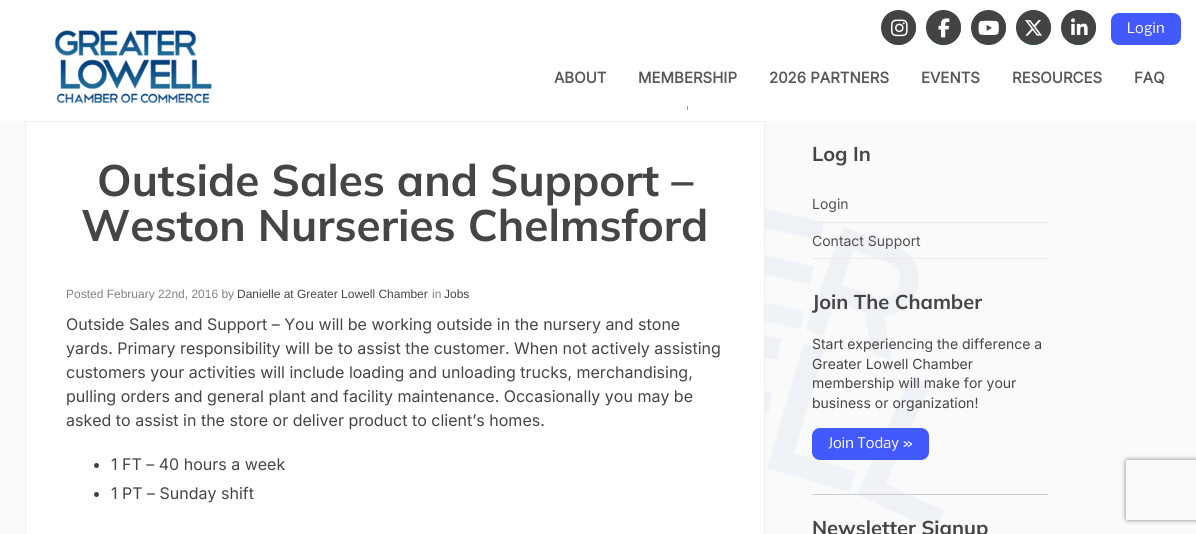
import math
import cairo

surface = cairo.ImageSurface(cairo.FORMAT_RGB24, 1196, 534)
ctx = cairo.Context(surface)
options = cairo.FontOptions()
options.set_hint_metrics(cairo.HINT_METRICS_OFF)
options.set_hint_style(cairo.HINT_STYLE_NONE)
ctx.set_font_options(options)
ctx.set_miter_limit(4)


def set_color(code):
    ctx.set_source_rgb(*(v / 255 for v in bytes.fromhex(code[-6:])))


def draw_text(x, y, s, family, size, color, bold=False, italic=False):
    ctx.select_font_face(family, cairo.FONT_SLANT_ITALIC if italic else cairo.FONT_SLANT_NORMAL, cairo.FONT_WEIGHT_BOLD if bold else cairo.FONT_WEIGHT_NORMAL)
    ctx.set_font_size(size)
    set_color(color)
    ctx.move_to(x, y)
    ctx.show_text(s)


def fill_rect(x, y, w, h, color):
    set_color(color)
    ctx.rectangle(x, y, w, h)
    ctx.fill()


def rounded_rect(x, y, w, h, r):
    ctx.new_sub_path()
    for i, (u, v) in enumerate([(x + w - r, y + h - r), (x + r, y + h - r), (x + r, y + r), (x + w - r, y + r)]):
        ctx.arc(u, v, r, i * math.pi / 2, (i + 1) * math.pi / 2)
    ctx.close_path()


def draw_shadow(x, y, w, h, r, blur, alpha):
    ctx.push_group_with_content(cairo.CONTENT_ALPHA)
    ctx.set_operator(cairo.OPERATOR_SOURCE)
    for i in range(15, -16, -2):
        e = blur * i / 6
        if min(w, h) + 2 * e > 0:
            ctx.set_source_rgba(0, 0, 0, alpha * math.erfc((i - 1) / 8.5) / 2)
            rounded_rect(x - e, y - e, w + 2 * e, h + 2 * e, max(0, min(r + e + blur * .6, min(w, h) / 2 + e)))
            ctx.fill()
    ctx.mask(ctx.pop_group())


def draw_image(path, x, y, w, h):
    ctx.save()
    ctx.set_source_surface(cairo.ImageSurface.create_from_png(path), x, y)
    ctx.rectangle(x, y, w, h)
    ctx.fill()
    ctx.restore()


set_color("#fafafb")
ctx.paint()
draw_image("assets/img1.png", 765, 191, 180, 343)
fill_rect(0, 0, 1196, 121, "#ffffff")
draw_image("assets/img2.png", 54, 30, 158, 74)
draw_image("assets/img3.png", 882, 13, 34, 32)
set_color("#434343")
ctx.arc(898.5, 27.5, 17.5, 0, 2 * math.pi)
ctx.fill()
draw_image("assets/img4.png", 891, 19, 17, 18)
draw_image("assets/img3.png", 927, 13, 34, 32)
ctx.arc(943.5, 27.5, 17.5, 0, 2 * math.pi)
ctx.fill()
draw_image("assets/img5.png", 938, 18, 12, 20)
draw_image("assets/img6.png", 972, 13, 34, 32)
ctx.arc(988.5, 27.5, 17.5, 0, 2 * math.pi)
ctx.fill()
draw_image("assets/img7.png", 978, 20, 21, 15)
draw_image("assets/img8.png", 1016, 13, 35, 32)
ctx.arc(1033.5, 27.5, 17.5, 0, 2 * math.pi)
ctx.fill()
draw_image("assets/img9.png", 1025, 20, 17, 16)
draw_image("assets/img10.png", 1062, 13, 34, 32)
ctx.arc(1078.5, 27.5, 17.5, 0, 2 * math.pi)
ctx.fill()
draw_image("assets/img11.png", 1071, 18, 17, 17)
set_color("#4159fd")
rounded_rect(1111, 13, 70, 32, 8)
ctx.fill()
draw_text(1127, 33, "Login", "Nobile", 14, "#ffffff")
draw_text(554, 83, "ABOUT", "Inter", 15, "#585858", bold=True)
draw_text(638, 83, "MEMBERSHIP", "Inter", 15, "#585858", bold=True)
fill_rect(687, 106, 1, 4, "#54bdc6")
draw_text(769, 83, "2026 PARTNERS", "Inter", 15, "#585858", bold=True)
draw_text(921, 83, "EVENTS", "Inter", 15, "#585858", bold=True)
draw_text(1012, 83, "RESOURCES", "Inter", 15, "#585858", bold=True)
draw_text(1134, 83, "FAQ", "Inter", 15, "#585858", bold=True)
fill_rect(26, 122, 738, 412, "#ffffff")
fill_rect(25, 121, 740, 1, "#eeeeee")
ctx.new_path()
ctx.move_to(765, 121)
ctx.line_to(765, 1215)
ctx.line_to(764, 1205)
ctx.line_to(764, 122)
ctx.close_path()
ctx.fill()
ctx.new_path()
ctx.move_to(25, 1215)
ctx.line_to(25, 121)
ctx.line_to(26, 122)
ctx.line_to(26, 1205)
ctx.close_path()
ctx.fill()
draw_text(97, 196, "Outside Sales and Support –", "Mulish", 44, "#454545", bold=True)
draw_text(81, 241, "Weston Nurseries Chelmsford", "Mulish", 44, "#454545", bold=True)
draw_text(66, 298, "Posted February 22nd, 2016 by", "Liberation Sans", 12, "#828282")
draw_text(237, 298, "Danielle at Greater Lowell Chamber", "Liberation Sans", 12, "#454545")
draw_text(432, 298, "in", "Liberation Sans", 12, "#828282")
draw_text(444, 298, "Jobs", "Liberation Sans", 12, "#454545")
draw_text(66, 330, "Outside Sales and Support – You will be working outside in the nursery and stone", "Inter", 16, "#454545")
draw_text(66, 354, "yards. Primary responsibility will be to assist the customer. When not actively assisting", "Inter", 16, "#454545")
draw_text(66, 378, "customers your activities will include loading and unloading trucks, merchandising,", "Inter", 16, "#454545")
draw_text(66, 402, "pulling orders and general plant and facility maintenance. Occasionally you may be", "Inter", 16, "#454545")
draw_text(66, 426, "asked to assist in the store or deliver product to client’s homes.", "Inter", 16, "#454545")
set_color("#434242")
ctx.new_path()
ctx.arc(96.5, 465.5, 2.5, 0, 2 * math.pi)
ctx.fill()
draw_text(111, 470, "1 FT – 40 hours a week", "Inter", 16, "#454545")
set_color("#434242")
ctx.new_path()
ctx.arc(96.5, 494.5, 2.5, 0, 2 * math.pi)
ctx.fill()
draw_text(111, 499, "1 PT – Sunday shift", "Inter", 16, "#454545")
draw_text(812, 161, "Log In", "Mulish", 20, "#454545", bold=True)
fill_rect(812, 222, 236, 1, "#eaeaea")
draw_text(812, 209, "Login", "Inter", 14, "#505050")
fill_rect(812, 258, 236, 1, "#eaeaea")
draw_text(812, 246, "Contact Support", "Inter", 14, "#505050")
fill_rect(812, 494, 236, 1, "#cccccc")
draw_text(812, 309, "Join The Chamber", "Mulish", 20, "#454545", bold=True)
draw_text(812, 349, "Start experiencing the difference a", "Inter", 14, "#454545")
draw_text(812, 369, "Greater Lowell Chamber", "Inter", 14, "#454545")
draw_text(812, 388, "membership will make for your", "Inter", 14, "#454545")
draw_text(812, 408, "business or organization!", "Inter", 14, "#454545")
set_color("#4159fd")
rounded_rect(812, 428, 117, 32, 8)
ctx.fill()
draw_text(828, 448, "Join Today »", "Nobile", 14, "#ffffff")
draw_text(812, 535, "Newsletter Signup", "Mulish", 20, "#454545", bold=True)
ctx.save()
ctx.set_fill_rule(cairo.FILL_RULE_EVEN_ODD)
ctx.new_path()
ctx.move_to(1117, 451)
ctx.line_to(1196, 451)
ctx.line_to(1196, 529)
ctx.line_to(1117, 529)
ctx.close_path()
ctx.move_to(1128, 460)
ctx.line_to(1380, 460)
ctx.curve_to(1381, 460, 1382, 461, 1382, 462)
ctx.line_to(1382, 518)
ctx.curve_to(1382, 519, 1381, 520, 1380, 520)
ctx.line_to(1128, 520)
ctx.curve_to(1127, 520, 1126, 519, 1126, 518)
ctx.line_to(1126, 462)
ctx.curve_to(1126, 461, 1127, 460, 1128, 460)
ctx.close_path()
ctx.clip()
set_color("#808080")
draw_shadow(1126, 460, 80, 60, 2, 2.5, 1)
ctx.restore()
surface.write_to_png("output.png")
